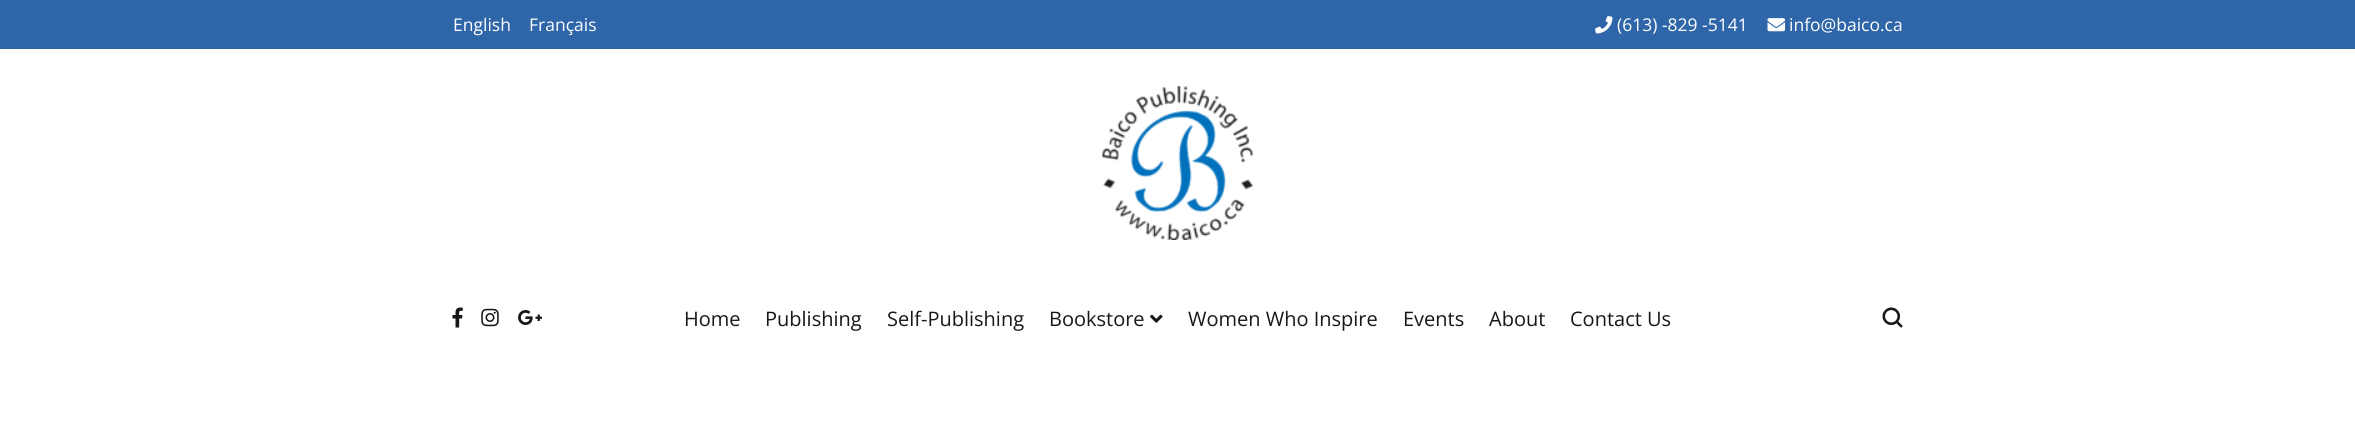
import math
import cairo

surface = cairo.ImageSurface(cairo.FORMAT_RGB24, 2355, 433)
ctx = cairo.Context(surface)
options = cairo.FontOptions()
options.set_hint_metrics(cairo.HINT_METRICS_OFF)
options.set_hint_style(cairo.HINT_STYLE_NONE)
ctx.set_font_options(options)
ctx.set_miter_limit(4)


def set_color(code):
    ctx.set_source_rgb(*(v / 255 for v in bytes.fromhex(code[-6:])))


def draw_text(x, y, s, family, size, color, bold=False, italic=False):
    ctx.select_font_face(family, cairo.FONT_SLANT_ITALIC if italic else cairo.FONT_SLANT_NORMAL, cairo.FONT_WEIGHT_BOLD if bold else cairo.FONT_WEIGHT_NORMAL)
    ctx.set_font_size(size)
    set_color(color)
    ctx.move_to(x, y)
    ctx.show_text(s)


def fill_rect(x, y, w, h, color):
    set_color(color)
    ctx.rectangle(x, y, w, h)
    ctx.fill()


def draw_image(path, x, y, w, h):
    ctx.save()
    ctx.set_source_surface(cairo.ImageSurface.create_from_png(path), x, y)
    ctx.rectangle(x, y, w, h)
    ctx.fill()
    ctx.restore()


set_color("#ffffff")
ctx.paint()
fill_rect(0, 0, 2355, 49, "#2f66a9")
draw_text(453, 31, "English", "Open Sans", 17.5, "#ffffff")
draw_text(529, 31, "Français", "Open Sans", 17.5, "#ffffff")
draw_image("assets/img1.png", 1595, 16, 18, 18)
draw_text(1617, 31, "(613) -829 -5141", "Open Sans", 17.5, "#ffffff")
draw_image("assets/img2.png", 1767, 18, 18, 14)
draw_text(1789, 31, "info@baico.ca", "Open Sans", 17.5, "#ffffff")
draw_image("assets/img3.png", 1102, 86, 151, 154)
draw_image("assets/img4.png", 452, 307, 11, 21)
draw_image("assets/img5.png", 481, 308, 18, 19)
draw_image("assets/img6.png", 518, 310, 24, 15)
draw_text(684, 326, "Home", "Open Sans", 20, "#16181a")
draw_text(765, 326, "Publishing", "Open Sans", 20, "#16181a")
draw_text(887, 326, "Self-Publishing", "Open Sans", 20, "#16181a")
draw_text(1049, 326, "Bookstore", "Open Sans", 20, "#16181a")
draw_image("assets/img7.png", 1150, 314, 13, 9)
draw_text(1188, 326, "Women Who Inspire", "Open Sans", 20, "#16181a")
draw_text(1403, 326, "Events", "Open Sans", 20, "#16181a")
draw_text(1489, 326, "About", "Open Sans", 20, "#16181a")
draw_text(1570, 326, "Contact Us", "Open Sans", 20, "#16181a")
draw_image("assets/img8.png", 1882, 307, 21, 21)
surface.write_to_png("output.png")
